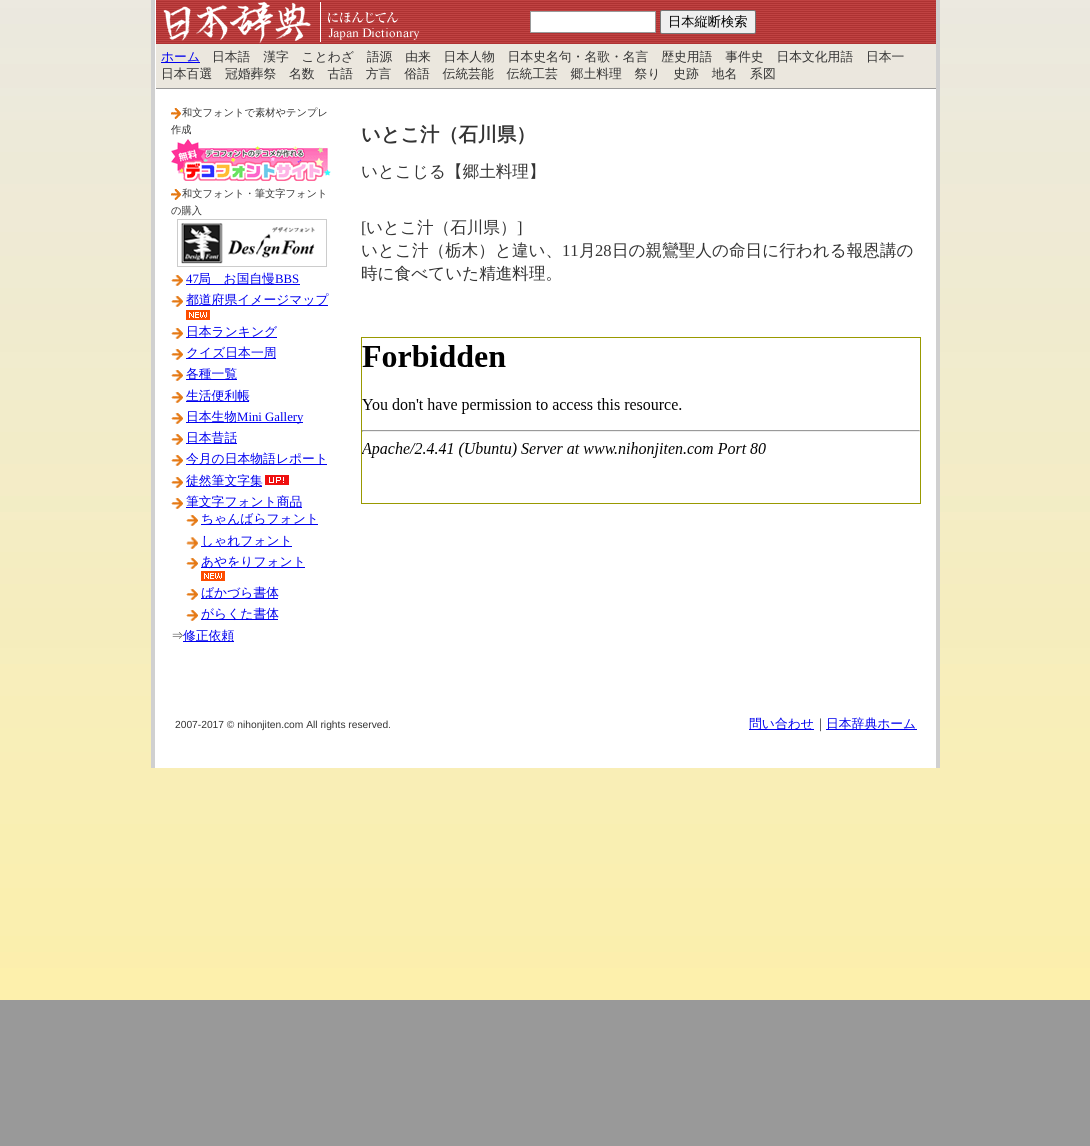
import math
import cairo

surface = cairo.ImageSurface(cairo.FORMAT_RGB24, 1090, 1146)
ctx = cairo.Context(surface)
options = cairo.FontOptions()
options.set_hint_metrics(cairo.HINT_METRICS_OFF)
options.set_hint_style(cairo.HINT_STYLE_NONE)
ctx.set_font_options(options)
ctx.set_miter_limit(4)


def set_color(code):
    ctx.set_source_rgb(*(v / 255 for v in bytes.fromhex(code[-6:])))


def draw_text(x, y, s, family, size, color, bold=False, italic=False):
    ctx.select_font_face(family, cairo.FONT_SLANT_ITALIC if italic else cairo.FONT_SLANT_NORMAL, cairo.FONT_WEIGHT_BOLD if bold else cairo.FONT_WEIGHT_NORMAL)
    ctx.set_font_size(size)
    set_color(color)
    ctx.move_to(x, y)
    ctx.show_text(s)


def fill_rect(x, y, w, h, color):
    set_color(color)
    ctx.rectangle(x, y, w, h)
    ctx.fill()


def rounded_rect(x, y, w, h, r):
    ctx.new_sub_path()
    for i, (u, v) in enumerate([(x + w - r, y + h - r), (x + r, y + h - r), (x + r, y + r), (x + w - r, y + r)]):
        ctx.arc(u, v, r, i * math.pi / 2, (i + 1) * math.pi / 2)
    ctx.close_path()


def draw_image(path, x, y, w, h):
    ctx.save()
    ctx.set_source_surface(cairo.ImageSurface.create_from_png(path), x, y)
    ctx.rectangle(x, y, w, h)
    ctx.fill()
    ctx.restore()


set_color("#999999")
ctx.paint()
draw_image("assets/img1.png", 0, 0, 1090, 1000)
fill_rect(155, 0, 781, 768, "#ffffff")
fill_rect(936, 0, 4, 768, "#d0d0d0")
fill_rect(151, 0, 4, 768, "#d0d0d0")
draw_image("assets/img2.png", 156, 0, 780, 44)
draw_image("assets/img3.png", 163, 1, 257, 43)
set_color("#ffffff")
ctx.rectangle(530.5, 11.5, 125, 21)
ctx.fill_preserve()
set_color("#999999")
ctx.set_line_width(1)
ctx.stroke()
set_color("#efefef")
rounded_rect(660.5, 10.5, 95, 23, 1.5)
ctx.fill_preserve()
set_color("#767676")
ctx.stroke()
draw_text(668, 26, "日本縦断検索", "WenQuanYi Zen Hei Medium", 13.25, "#000000")
fill_rect(156, 44, 780, 44, "#ebe7de")
fill_rect(156, 88, 780, 1, "#999999")
fill_rect(161, 62, 39, 1, "#0000ee")
draw_text(161, 61, "ホーム", "WenQuanYi Zen Hei Medium", 12.8, "#0000ee")
draw_text(212, 61, "日本語　漢字　ことわざ　語源　由来　日本人物　日本史名句・名歌・名言　歴史用語　事件史　日本文化用語　日本一", "WenQuanYi Zen Hei Medium", 12.8, "#333333")
draw_text(161, 78, "日本百選　冠婚葬祭　名数　古語　方言　俗語　伝統芸能　伝統工芸　郷土料理　祭り　史跡　地名　系図", "WenQuanYi Zen Hei Medium", 12.8, "#333333")
draw_image("assets/img4.png", 171, 108, 10, 11)
draw_text(182, 116, "和文フォントで素材やテンプレ", "WenQuanYi Zen Hei Medium", 10.25, "#333333")
draw_text(171, 133, "作成", "WenQuanYi Zen Hei Medium", 10.25, "#333333")
draw_image("assets/img5.png", 171, 139, 160, 42)
draw_image("assets/img4.png", 171, 189, 10, 11)
draw_text(182, 197, "和文フォント・筆文字フォント", "WenQuanYi Zen Hei Medium", 10.25, "#333333")
draw_text(171, 214, "の購入", "WenQuanYi Zen Hei Medium", 10.25, "#333333")
draw_image("assets/img6.png", 177, 219, 150, 48)
draw_image("assets/img7.png", 171, 275, 12, 11)
draw_text(186, 283, "47", "Liberation Serif", 12.8, "#0000ee")
fill_rect(186, 284, 114, 1, "#0000ee")
draw_text(198, 283, "局　お国自慢", "WenQuanYi Zen Hei Medium", 12.8, "#0000ee")
draw_text(275, 283, "BBS", "Liberation Serif", 12.8, "#0000ee")
draw_image("assets/img7.png", 171, 296, 12, 11)
fill_rect(186, 305, 142, 1, "#0000ee")
draw_text(186, 304, "都道府県イメージマップ", "WenQuanYi Zen Hei Medium", 12.8, "#0000ee")
draw_image("assets/img8.png", 186, 310, 24, 10)
draw_image("assets/img7.png", 171, 328, 12, 11)
fill_rect(186, 337, 91, 1, "#0000ee")
draw_text(186, 336, "日本ランキング", "WenQuanYi Zen Hei Medium", 12.8, "#0000ee")
draw_image("assets/img7.png", 171, 349, 12, 11)
fill_rect(186, 358, 90, 1, "#0000ee")
draw_text(186, 357, "クイズ日本一周", "WenQuanYi Zen Hei Medium", 12.8, "#0000ee")
draw_image("assets/img7.png", 171, 370, 12, 11)
fill_rect(186, 379, 51, 1, "#0000ee")
draw_text(186, 378, "各種一覧", "WenQuanYi Zen Hei Medium", 12.8, "#0000ee")
draw_image("assets/img7.png", 171, 392, 12, 11)
fill_rect(186, 401, 63, 1, "#0000ee")
draw_text(186, 400, "生活便利帳", "WenQuanYi Zen Hei Medium", 12.8, "#0000ee")
draw_image("assets/img7.png", 171, 413, 12, 11)
fill_rect(186, 422, 117, 1, "#0000ee")
draw_text(186, 421, "日本生物", "WenQuanYi Zen Hei Medium", 12.8, "#0000ee")
draw_text(237, 421, "Mini Gallery", "Liberation Serif", 12.8, "#0000ee")
draw_image("assets/img7.png", 171, 434, 12, 11)
fill_rect(186, 443, 51, 1, "#0000ee")
draw_text(186, 442, "日本昔話", "WenQuanYi Zen Hei Medium", 12.8, "#0000ee")
draw_image("assets/img7.png", 171, 455, 12, 11)
fill_rect(186, 464, 141, 1, "#0000ee")
draw_text(186, 463, "今月の日本物語レポート", "WenQuanYi Zen Hei Medium", 12.8, "#0000ee")
draw_image("assets/img7.png", 171, 477, 12, 11)
fill_rect(186, 486, 76, 1, "#0000ee")
draw_text(186, 485, "徒然筆文字集", "WenQuanYi Zen Hei Medium", 12.8, "#0000ee")
draw_image("assets/img9.png", 265, 475, 24, 10)
draw_image("assets/img7.png", 171, 498, 12, 11)
fill_rect(186, 507, 116, 1, "#0000ee")
draw_text(186, 506, "筆文字フォント商品", "WenQuanYi Zen Hei Medium", 12.8, "#0000ee")
draw_image("assets/img7.png", 186, 515, 12, 11)
fill_rect(201, 524, 117, 1, "#0000ee")
draw_text(201, 523, "ちゃんばらフォント", "WenQuanYi Zen Hei Medium", 12.8, "#0000ee")
draw_image("assets/img10.png", 186, 537, 12, 12)
fill_rect(201, 546, 91, 1, "#0000ee")
draw_text(201, 545, "しゃれフォント", "WenQuanYi Zen Hei Medium", 12.8, "#0000ee")
draw_image("assets/img7.png", 186, 558, 12, 11)
fill_rect(201, 567, 104, 1, "#0000ee")
draw_text(201, 566, "あやをりフォント", "WenQuanYi Zen Hei Medium", 12.8, "#0000ee")
draw_image("assets/img8.png", 201, 571, 24, 10)
draw_image("assets/img7.png", 186, 589, 12, 11)
fill_rect(201, 598, 77, 1, "#0000ee")
draw_text(201, 597, "ばかづら書体", "WenQuanYi Zen Hei Medium", 12.8, "#0000ee")
draw_image("assets/img7.png", 186, 610, 12, 11)
fill_rect(201, 619, 77, 1, "#0000ee")
draw_text(201, 618, "がらくた書体", "WenQuanYi Zen Hei Medium", 12.8, "#0000ee")
draw_text(171, 640, "⇒", "WenQuanYi Zen Hei Medium", 12.8, "#333333")
fill_rect(183, 641, 51, 1, "#0000ee")
draw_text(183, 640, "修正依頼", "WenQuanYi Zen Hei Medium", 12.8, "#0000ee")
draw_text(361, 141, "いとこ汁（石川県）", "WenQuanYi Zen Hei", 19.25, "#333333", bold=True)
draw_text(361, 177, "いとこじる【郷土料理】", "WenQuanYi Zen Hei Medium", 16.6, "#333333")
draw_text(361, 233, "[", "Liberation Serif", 16.6, "#333333")
draw_text(366, 233, "いとこ汁（石川県）", "WenQuanYi Zen Hei Medium", 16.6, "#333333")
draw_text(517, 233, "]", "Liberation Serif", 16.6, "#333333")
draw_text(361, 256, "いとこ汁（栃木）と違い、", "WenQuanYi Zen Hei Medium", 16.6, "#333333")
draw_text(562, 256, "11", "Liberation Serif", 16.6, "#333333")
draw_text(579, 256, "月", "WenQuanYi Zen Hei Medium", 16.6, "#333333")
draw_text(595, 256, "28", "Liberation Serif", 16.6, "#333333")
draw_text(612, 256, "日の親鸞聖人の命日に行われる報恩講の", "WenQuanYi Zen Hei Medium", 16.6, "#333333")
draw_text(361, 279, "時に食べていた精進料理。", "WenQuanYi Zen Hei Medium", 16.6, "#333333")
ctx.rectangle(361.5, 337.5, 559, 166)
set_color("#999900")
ctx.stroke()
draw_image("assets/img11.png", 362, 345, 558, 113)
draw_text(175, 728, "2007-2017 © nihonjiten.com All rights reserved.", "Liberation Sans", 10.25, "#333333")
fill_rect(749, 729, 65, 1, "#0000ee")
draw_text(749, 728, "問い合わせ", "WenQuanYi Zen Hei Medium", 12.8, "#0000ee")
draw_text(814, 728, "｜", "WenQuanYi Zen Hei Medium", 12.8, "#333333")
fill_rect(826, 729, 91, 1, "#0000ee")
draw_text(826, 728, "日本辞典ホーム", "WenQuanYi Zen Hei Medium", 12.8, "#0000ee")
surface.write_to_png("output.png")
